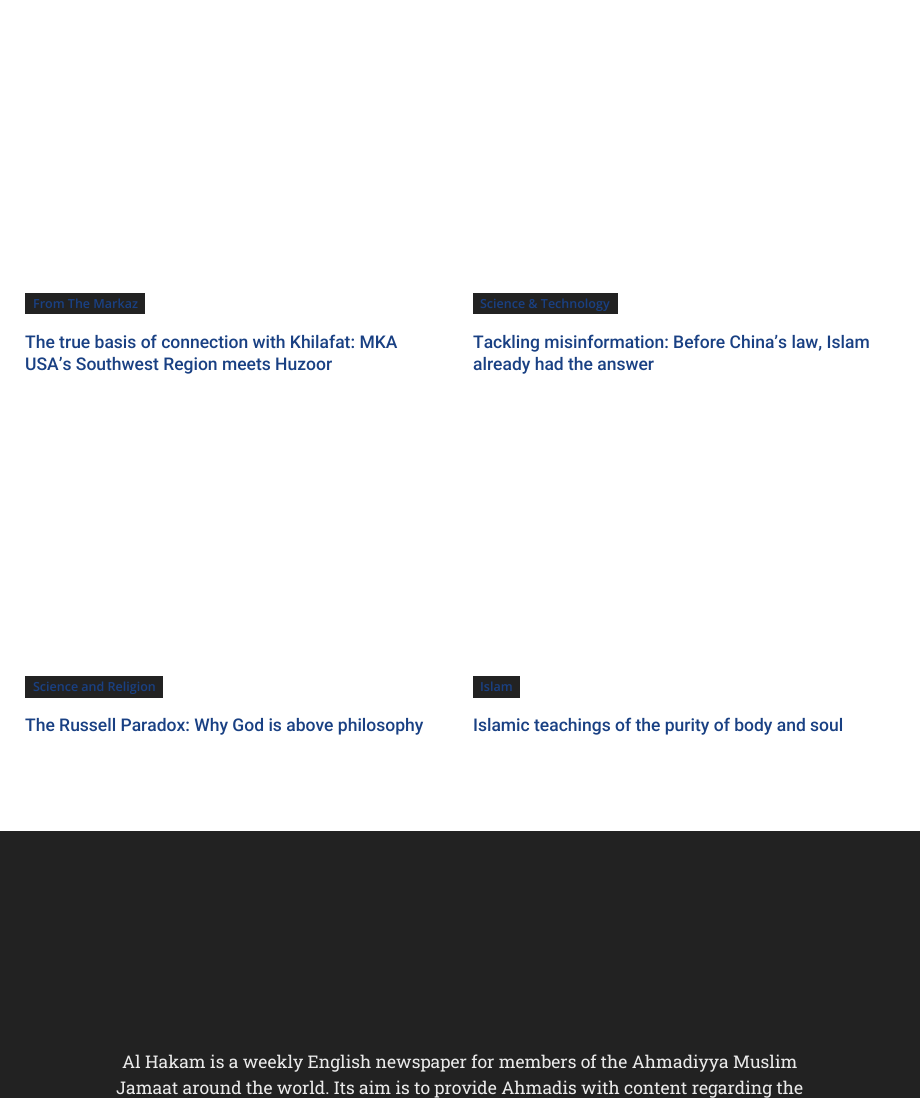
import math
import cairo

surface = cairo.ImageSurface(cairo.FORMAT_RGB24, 920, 1098)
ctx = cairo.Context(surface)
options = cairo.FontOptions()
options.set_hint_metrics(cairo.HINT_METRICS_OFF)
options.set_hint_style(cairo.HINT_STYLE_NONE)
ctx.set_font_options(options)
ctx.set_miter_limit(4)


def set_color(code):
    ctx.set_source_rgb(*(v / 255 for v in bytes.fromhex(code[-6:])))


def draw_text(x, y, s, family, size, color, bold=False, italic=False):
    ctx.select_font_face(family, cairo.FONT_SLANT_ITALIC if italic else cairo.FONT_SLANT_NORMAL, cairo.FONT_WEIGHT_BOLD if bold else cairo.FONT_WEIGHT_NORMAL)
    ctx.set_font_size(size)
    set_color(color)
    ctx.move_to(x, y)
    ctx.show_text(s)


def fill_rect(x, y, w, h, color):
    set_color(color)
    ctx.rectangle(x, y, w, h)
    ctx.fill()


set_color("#ffffff")
ctx.paint()
fill_rect(25, 293, 120, 21, "#222222")
draw_text(33, 308, "From The Markaz", "Open Sans SemiBold", 12.5, "#194083")
draw_text(25, 348, "The true basis of connection with Khilafat: MKA", "Roboto Medium", 17.5, "#194083")
draw_text(25, 370, "USA’s Southwest Region meets Huzoor", "Roboto Medium", 17.5, "#194083")
fill_rect(473, 293, 145, 21, "#222222")
draw_text(480, 308, "Science & Technology", "Open Sans SemiBold", 12.5, "#194083")
draw_text(473, 348, "Tackling misinformation: Before China’s law, Islam", "Roboto Medium", 17.5, "#194083")
draw_text(473, 370, "already had the answer", "Roboto Medium", 17.5, "#194083")
fill_rect(25, 676, 138, 22, "#222222")
draw_text(33, 691, "Science and Religion", "Open Sans SemiBold", 12.5, "#194083")
draw_text(25, 731, "The Russell Paradox: Why God is above philosophy", "Roboto Medium", 17.5, "#194083")
fill_rect(473, 676, 47, 22, "#222222")
draw_text(480, 691, "Islam", "Open Sans SemiBold", 12.5, "#194083")
draw_text(473, 731, "Islamic teachings of the purity of body and soul", "Roboto Medium", 17.5, "#194083")
fill_rect(0, 831, 920, 267, "#222222")
draw_text(122, 1068, "Al Hakam is a weekly English newspaper for members of the Ahmadiyya Muslim", "Roboto Slab", 17.5, "#eaeaea")
draw_text(116, 1094, "Jamaat around the world. Its aim is to provide Ahmadis with content regarding the", "Roboto Slab", 17.5, "#eaeaea")
surface.write_to_png("output.png")
